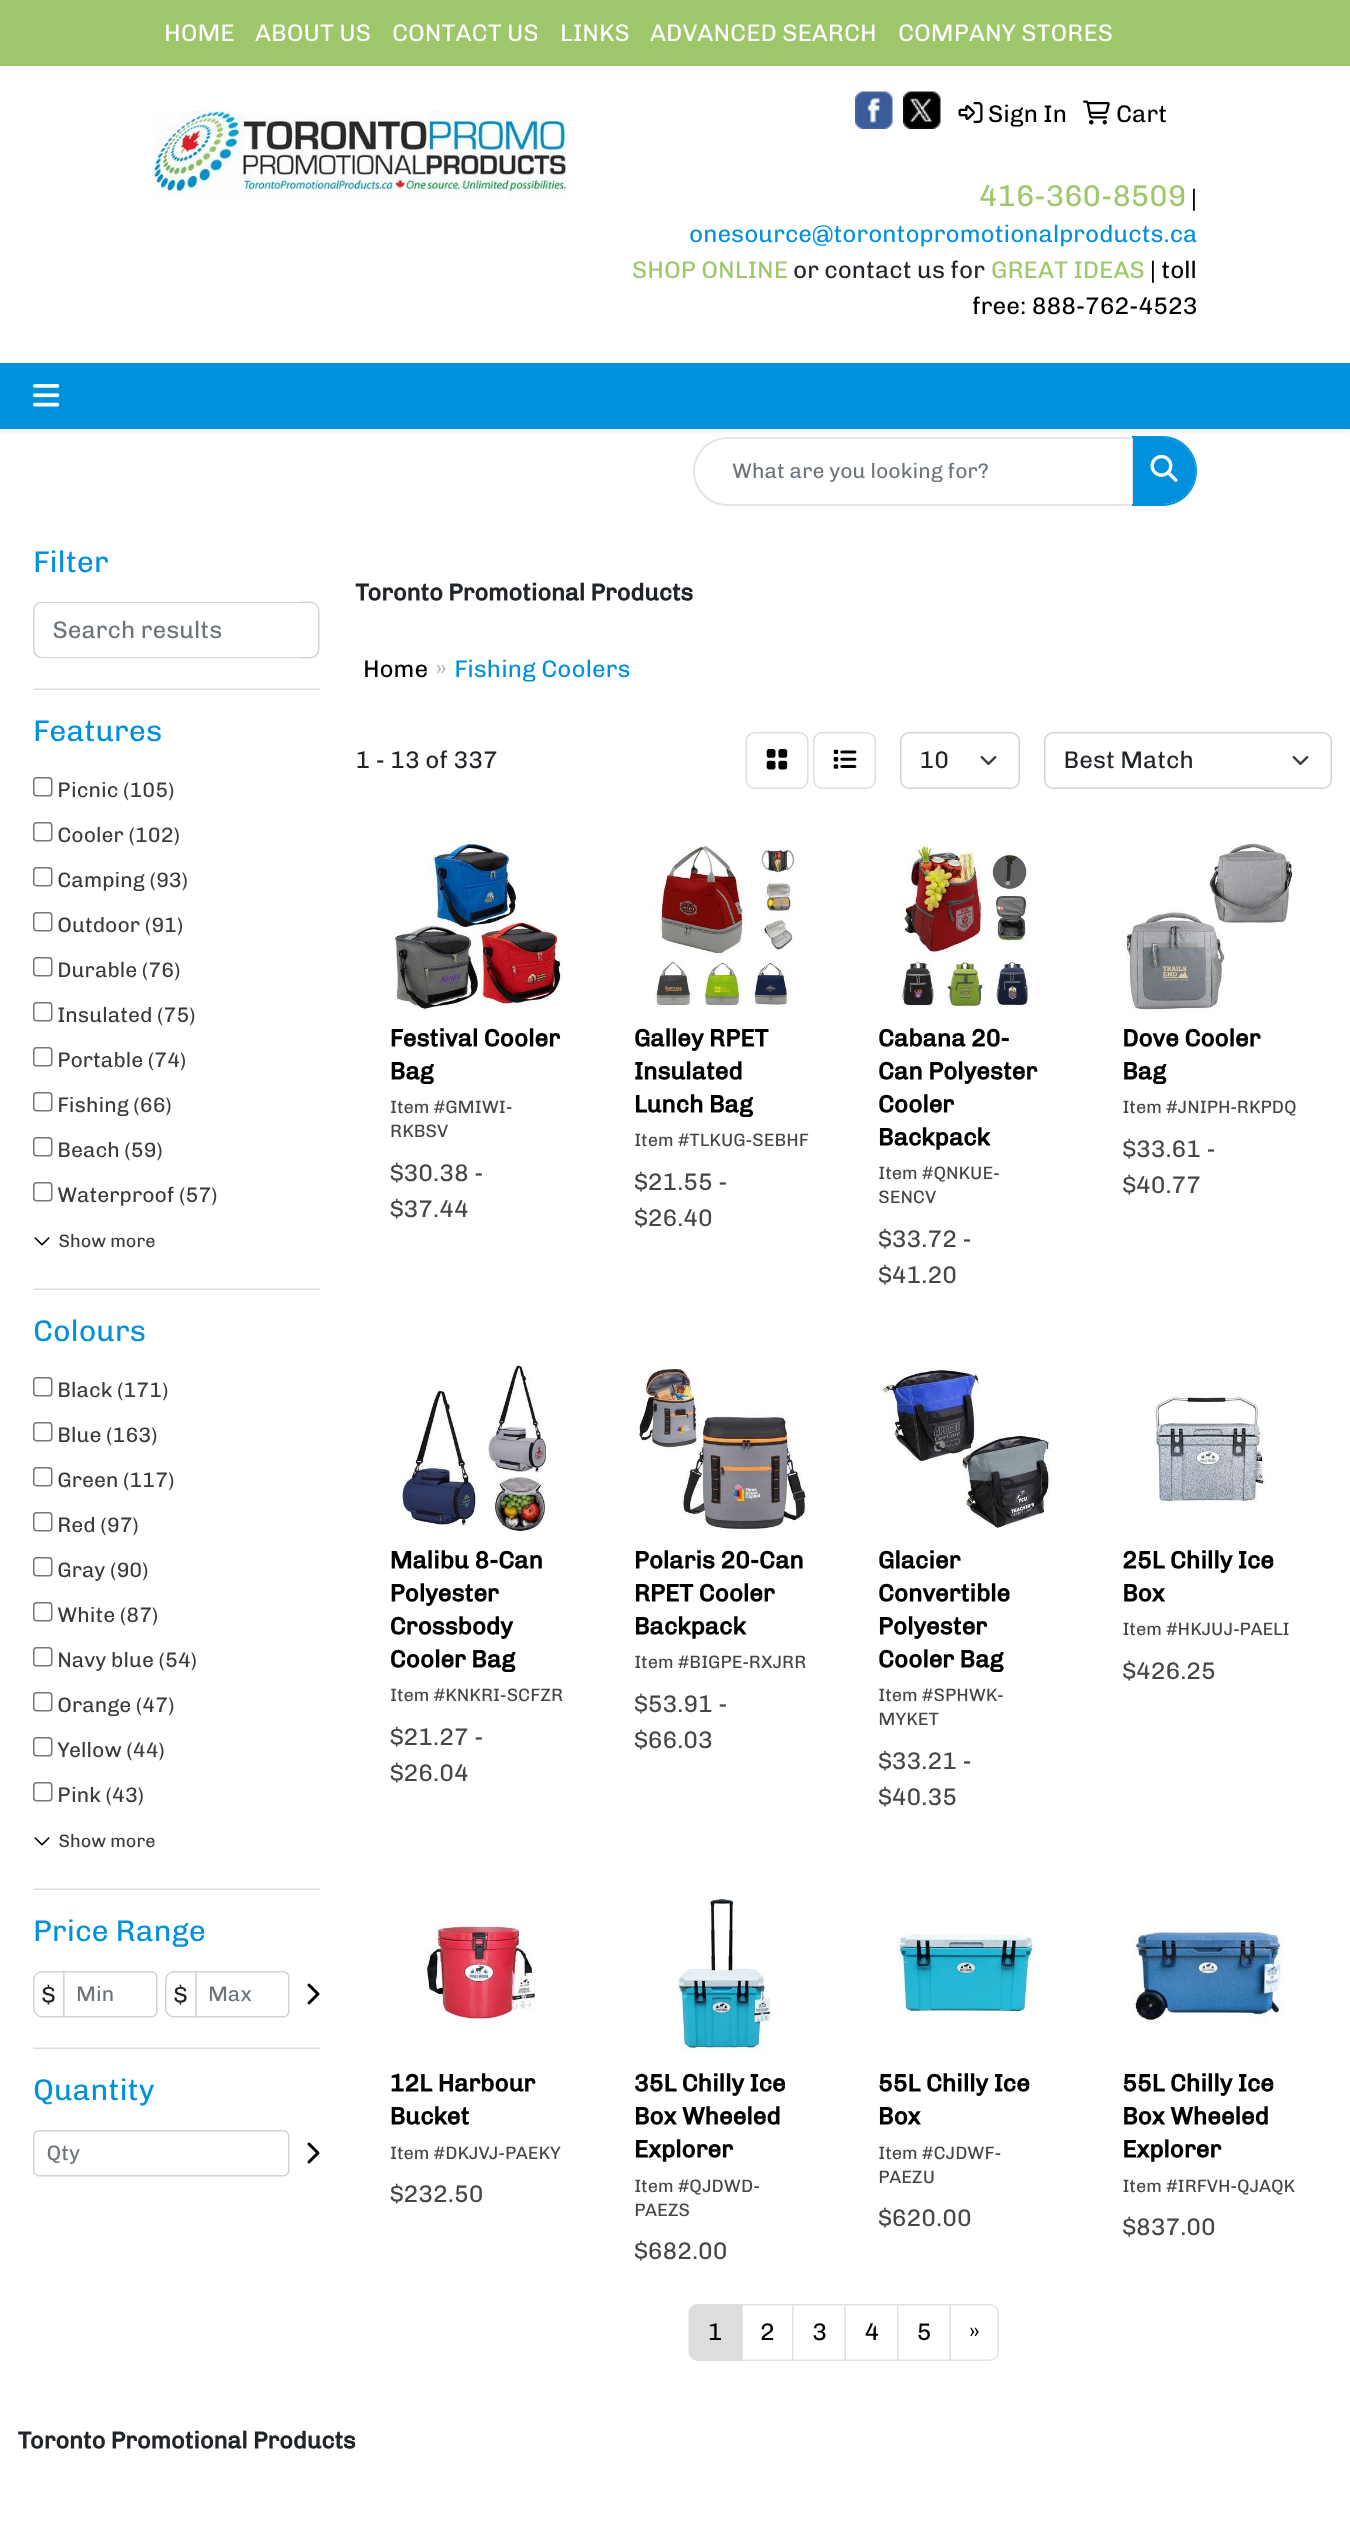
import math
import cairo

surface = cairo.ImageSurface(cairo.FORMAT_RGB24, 1350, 2533)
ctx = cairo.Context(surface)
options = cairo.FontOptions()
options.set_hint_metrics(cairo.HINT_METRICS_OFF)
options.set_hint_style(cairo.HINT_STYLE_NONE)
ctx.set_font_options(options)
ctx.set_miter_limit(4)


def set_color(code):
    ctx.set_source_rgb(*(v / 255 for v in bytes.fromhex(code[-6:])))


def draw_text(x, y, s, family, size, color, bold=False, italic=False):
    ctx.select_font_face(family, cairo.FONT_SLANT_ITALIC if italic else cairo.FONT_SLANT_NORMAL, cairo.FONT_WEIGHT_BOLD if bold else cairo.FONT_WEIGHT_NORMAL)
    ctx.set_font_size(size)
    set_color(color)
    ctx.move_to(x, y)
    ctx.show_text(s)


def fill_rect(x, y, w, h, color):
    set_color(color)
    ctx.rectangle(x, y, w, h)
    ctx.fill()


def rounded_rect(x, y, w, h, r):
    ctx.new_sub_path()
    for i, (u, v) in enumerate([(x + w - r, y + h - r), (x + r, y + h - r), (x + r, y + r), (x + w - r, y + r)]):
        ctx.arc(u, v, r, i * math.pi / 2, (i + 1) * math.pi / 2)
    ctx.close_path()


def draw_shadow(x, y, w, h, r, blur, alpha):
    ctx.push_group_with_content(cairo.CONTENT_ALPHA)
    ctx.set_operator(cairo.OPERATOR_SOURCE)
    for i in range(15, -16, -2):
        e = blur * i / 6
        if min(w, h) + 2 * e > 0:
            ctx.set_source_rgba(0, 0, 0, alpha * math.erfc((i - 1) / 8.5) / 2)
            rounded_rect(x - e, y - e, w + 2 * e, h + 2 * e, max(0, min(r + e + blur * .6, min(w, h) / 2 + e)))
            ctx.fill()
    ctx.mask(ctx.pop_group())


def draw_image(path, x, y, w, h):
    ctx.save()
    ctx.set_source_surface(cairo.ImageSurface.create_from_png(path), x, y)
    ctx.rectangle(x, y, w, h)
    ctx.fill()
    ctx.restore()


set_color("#ffffff")
ctx.paint()
fill_rect(0, 0, 1350, 66, "#9ec76b")
draw_text(164, 41, "HOME", "Chivo Medium", 24, "#ffffff")
draw_text(255, 41, "ABOUT US", "Chivo Medium", 24, "#ffffff")
draw_text(392, 41, "CONTACT US", "Chivo Medium", 24, "#ffffff")
draw_text(560, 41, "LINKS", "Chivo Medium", 24, "#ffffff")
draw_text(650, 41, "ADVANCED SEARCH", "Chivo Medium", 24, "#ffffff")
draw_text(898, 41, "COMPANY STORES", "Chivo Medium", 24, "#ffffff")
draw_image("assets/img1.png", 153, 111, 414, 89)
draw_image("assets/img2.png", 855, 91, 38, 38)
draw_image("assets/img3.png", 903, 91, 38, 38)
draw_image("assets/img4.png", 958, 102, 25, 21)
draw_text(988, 122, "Sign In", "Chivo Medium", 24, "#000000")
draw_image("assets/img5.png", 1083, 100, 27, 25)
draw_text(1116, 122, "Cart", "Chivo Medium", 24, "#000000")
draw_text(979, 206, "416-360-8509", "Chivo Medium", 30, "#9ec76b")
draw_text(1191, 206, "|", "Chivo Medium", 24, "#000000")
draw_text(689, 242, "onesource@torontopromotionalproducts.ca", "Chivo Medium", 24, "#0190dc")
draw_text(632, 278, "SHOP ONLINE", "Chivo Medium", 24, "#9ec76b")
draw_text(793, 278, "or contact us for", "Chivo Medium", 24, "#212529")
draw_text(991, 278, "GREAT IDEAS", "Chivo Medium", 24, "#9ec76b")
draw_text(1150, 278, "| toll", "Chivo Medium", 24, "#000000")
draw_text(972, 314, "free: 888-762-4523", "Chivo Medium", 24, "#000000")
set_color("#000000")
draw_shadow(0, 366, 1350, 66, 0, 3, 0.07)
fill_rect(0, 363, 1350, 66, "#0190dc")
draw_image("assets/img6.png", 33, 384, 27, 23)
ctx.new_path()
ctx.move_to(727.5, 438)
ctx.line_to(1133, 438)
ctx.line_to(1133, 505)
ctx.line_to(727.5, 505)
ctx.curve_to(709, 505, 694, 490, 694, 471.5)
ctx.curve_to(694, 453, 709, 438, 727.5, 438)
ctx.close_path()
set_color("#e4e4e4")
ctx.stroke()
draw_text(732, 478, "What are you looking for?", "Chivo Medium", 21, "#6c757d")
set_color("#0190dc")
ctx.new_path()
ctx.move_to(1133, 438)
ctx.line_to(1163, 438)
ctx.curve_to(1181, 438, 1196, 453, 1196, 471)
ctx.curve_to(1196, 489, 1181, 504, 1163, 504)
ctx.line_to(1133, 504)
ctx.close_path()
ctx.fill()
ctx.set_fill_rule(cairo.FILL_RULE_EVEN_ODD)
ctx.new_path()
ctx.move_to(1132, 436)
ctx.line_to(1162, 436)
ctx.curve_to(1182, 436, 1197, 452, 1197, 471)
ctx.curve_to(1197, 490, 1182, 506, 1162, 506)
ctx.line_to(1132, 506)
ctx.close_path()
ctx.move_to(1132, 438)
ctx.line_to(1162, 438)
ctx.curve_to(1181, 438, 1196, 453, 1196, 471)
ctx.curve_to(1196, 489, 1181, 504, 1162, 504)
ctx.line_to(1132, 504)
ctx.close_path()
ctx.fill()
draw_image("assets/img7.png", 1150, 454, 28, 28)
draw_image("assets/img8.png", 18, 550, 1314, 1899)
surface.write_to_png("output.png")
